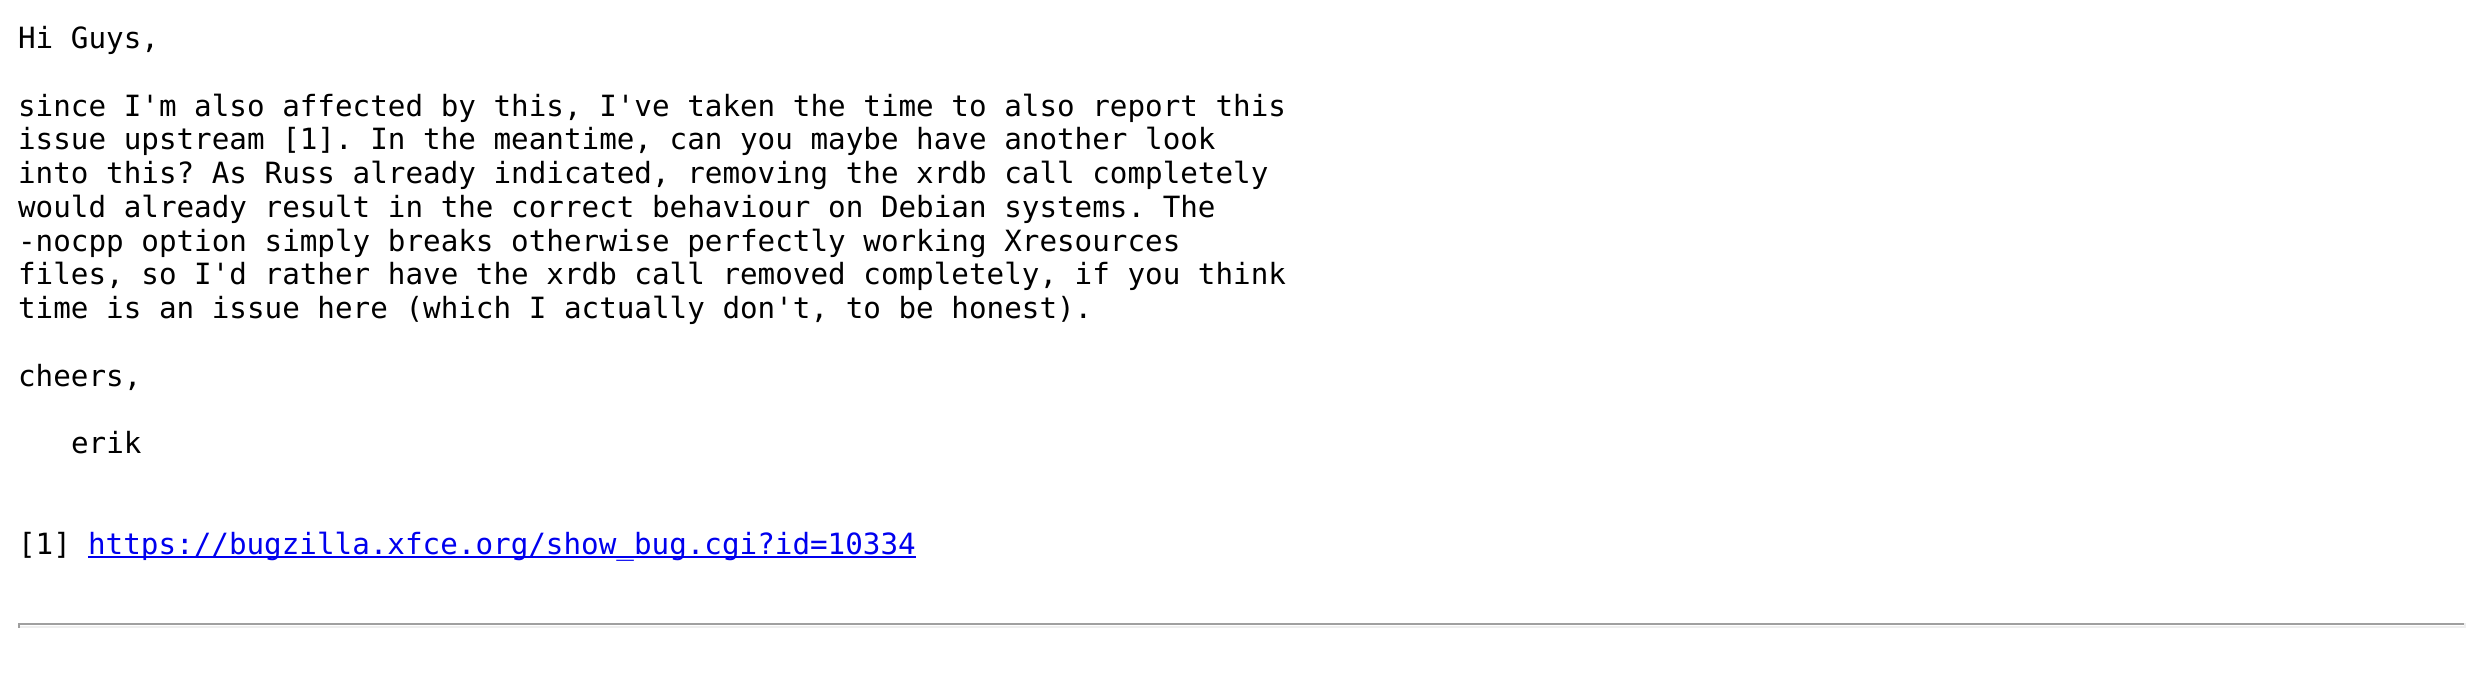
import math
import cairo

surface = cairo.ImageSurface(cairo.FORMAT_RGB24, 2482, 677)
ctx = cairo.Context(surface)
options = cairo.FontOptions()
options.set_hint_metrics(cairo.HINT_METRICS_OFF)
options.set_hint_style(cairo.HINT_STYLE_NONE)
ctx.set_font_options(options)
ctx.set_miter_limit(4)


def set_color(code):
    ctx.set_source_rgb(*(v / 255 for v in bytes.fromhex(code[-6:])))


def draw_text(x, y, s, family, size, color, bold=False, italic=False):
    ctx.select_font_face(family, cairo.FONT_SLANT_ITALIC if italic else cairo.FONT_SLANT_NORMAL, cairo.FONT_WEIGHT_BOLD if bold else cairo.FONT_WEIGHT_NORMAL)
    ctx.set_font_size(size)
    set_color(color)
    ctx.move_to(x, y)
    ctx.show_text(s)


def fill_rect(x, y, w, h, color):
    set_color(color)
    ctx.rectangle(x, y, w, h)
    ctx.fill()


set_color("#ffffff")
ctx.paint()
draw_text(18, 48, "Hi Guys,", "DejaVu Sans Mono", 29.25, "#000000")
draw_text(18, 116, "since I'm also affected by this, I've taken the time to also report this", "DejaVu Sans Mono", 29.25, "#000000")
draw_text(18, 149, "issue upstream [1]. In the meantime, can you maybe have another look", "DejaVu Sans Mono", 29.25, "#000000")
draw_text(18, 183, "into this? As Russ already indicated, removing the xrdb call completely", "DejaVu Sans Mono", 29.25, "#000000")
draw_text(18, 217, "would already result in the correct behaviour on Debian systems. The", "DejaVu Sans Mono", 29.25, "#000000")
draw_text(18, 251, "-nocpp option simply breaks otherwise perfectly working Xresources", "DejaVu Sans Mono", 29.25, "#000000")
draw_text(18, 284, "files, so I'd rather have the xrdb call removed completely, if you think", "DejaVu Sans Mono", 29.25, "#000000")
draw_text(18, 318, "time is an issue here (which I actually don't, to be honest).", "DejaVu Sans Mono", 29.25, "#000000")
draw_text(18, 386, "cheers,", "DejaVu Sans Mono", 29.25, "#000000")
draw_text(71, 453, "erik", "DejaVu Sans Mono", 29.25, "#000000")
draw_text(18, 554, "[1]", "DejaVu Sans Mono", 29.25, "#000000")
fill_rect(88, 556, 828, 2, "#0000ee")
draw_text(88, 554, "https://bugzilla.xfce.org/show_bug.cgi?id=10334", "DejaVu Sans Mono", 29.25, "#0000ee")
fill_rect(18, 623, 2448, 2, "#9f9f9f")
fill_rect(2464, 623, 2, 5, "#eeeeee")
fill_rect(18, 626, 2448, 2, "#eeeeee")
fill_rect(18, 623, 2, 5, "#9f9f9f")
surface.write_to_png("output.png")
